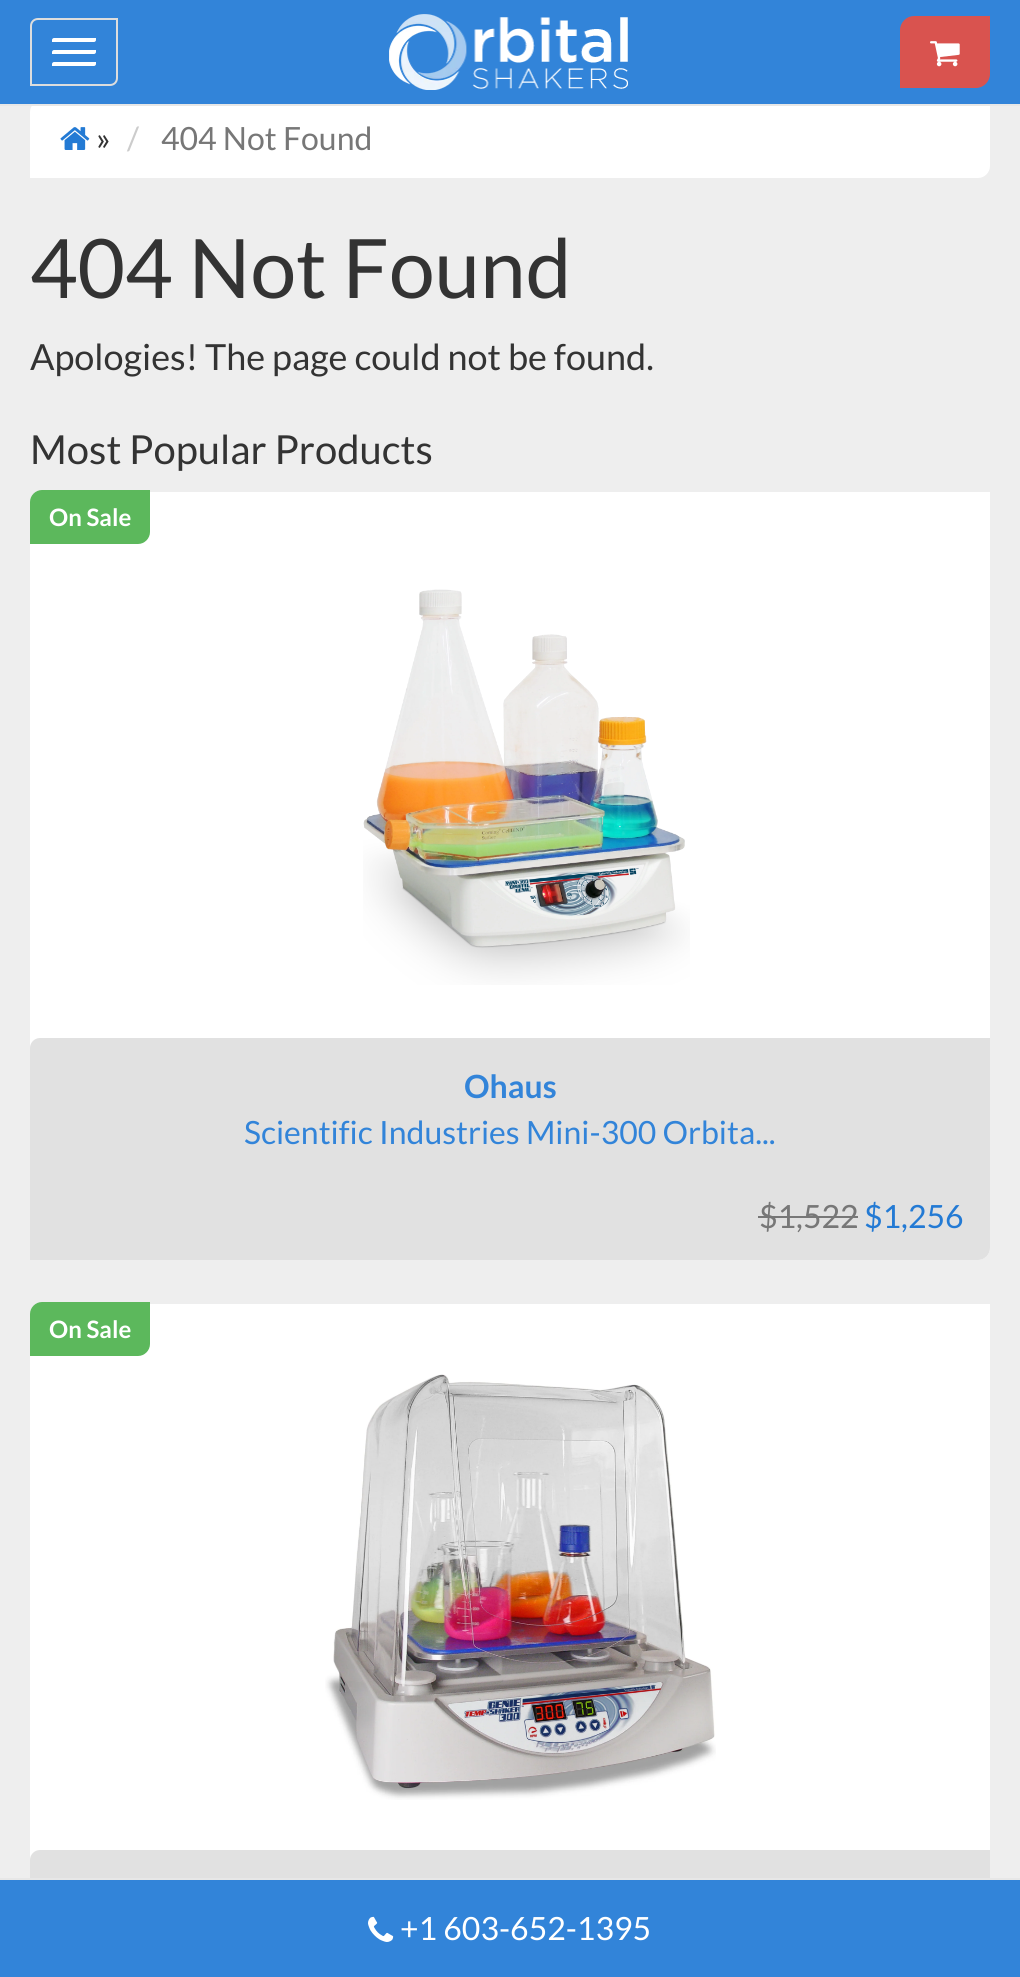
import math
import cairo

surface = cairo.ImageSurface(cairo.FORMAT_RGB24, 1020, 1977)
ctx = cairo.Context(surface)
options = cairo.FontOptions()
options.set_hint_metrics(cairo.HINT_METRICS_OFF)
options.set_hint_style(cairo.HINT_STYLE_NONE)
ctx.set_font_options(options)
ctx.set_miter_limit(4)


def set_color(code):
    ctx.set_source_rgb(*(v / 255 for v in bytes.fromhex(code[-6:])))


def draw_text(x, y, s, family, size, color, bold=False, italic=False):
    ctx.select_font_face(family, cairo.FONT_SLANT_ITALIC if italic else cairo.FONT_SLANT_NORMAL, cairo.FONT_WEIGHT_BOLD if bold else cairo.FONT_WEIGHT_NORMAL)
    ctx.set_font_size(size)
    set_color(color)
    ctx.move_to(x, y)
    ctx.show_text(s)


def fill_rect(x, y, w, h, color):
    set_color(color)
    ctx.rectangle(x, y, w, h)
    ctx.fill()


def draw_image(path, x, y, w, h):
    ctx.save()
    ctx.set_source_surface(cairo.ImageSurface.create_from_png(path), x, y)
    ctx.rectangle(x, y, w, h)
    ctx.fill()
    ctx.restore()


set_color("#eeeeee")
ctx.paint()
set_color("#ffffff")
ctx.new_path()
ctx.move_to(42, 100)
ctx.line_to(990, 100)
ctx.line_to(990, 166)
ctx.curve_to(990, 172.5, 984.5, 178, 978, 178)
ctx.line_to(30, 178)
ctx.line_to(30, 112)
ctx.curve_to(30, 105.5, 35.5, 100, 42, 100)
ctx.close_path()
ctx.fill()
fill_rect(0, 0, 1020, 104, "#3284d9")
fill_rect(0, 104, 1020, 2, "#e7e7e7")
ctx.new_path()
ctx.move_to(38, 19)
ctx.line_to(117, 19)
ctx.line_to(117, 78)
ctx.curve_to(117, 82, 114, 85, 110, 85)
ctx.line_to(31, 85)
ctx.line_to(31, 26)
ctx.curve_to(31, 22, 34, 19, 38, 19)
ctx.close_path()
set_color("#dddddd")
ctx.stroke()
set_color("#ffffff")
ctx.new_path()
ctx.move_to(54, 38)
ctx.line_to(96, 38)
ctx.line_to(96, 40)
ctx.curve_to(96, 41, 95, 42, 94, 42)
ctx.line_to(52, 42)
ctx.line_to(52, 40)
ctx.curve_to(52, 39, 53, 38, 54, 38)
ctx.close_path()
ctx.fill()
ctx.new_path()
ctx.move_to(54, 50)
ctx.line_to(96, 50)
ctx.line_to(96, 52)
ctx.curve_to(96, 53, 95, 54, 94, 54)
ctx.line_to(52, 54)
ctx.line_to(52, 52)
ctx.curve_to(52, 51, 53, 50, 54, 50)
ctx.close_path()
ctx.fill()
ctx.new_path()
ctx.move_to(54, 62)
ctx.line_to(96, 62)
ctx.line_to(96, 64)
ctx.curve_to(96, 65, 95, 66, 94, 66)
ctx.line_to(52, 66)
ctx.line_to(52, 64)
ctx.curve_to(52, 63, 53, 62, 54, 62)
ctx.close_path()
ctx.fill()
draw_image("assets/img1.png", 389, 14, 239, 76)
set_color("#d9534f")
ctx.new_path()
ctx.move_to(914, 16)
ctx.line_to(990, 16)
ctx.line_to(990, 74)
ctx.curve_to(990, 81.5, 983.5, 88, 976, 88)
ctx.line_to(900, 88)
ctx.line_to(900, 30)
ctx.curve_to(900, 22.5, 906.5, 16, 914, 16)
ctx.close_path()
ctx.fill()
draw_image("assets/img2.png", 930, 41, 30, 26)
draw_image("assets/img3.png", 60, 127, 30, 23)
draw_text(96, 150, "»", "Lato", 32, "#333333")
draw_text(127, 150, "/", "Lato", 32, "#cccccc")
draw_text(161, 150, "404 Not Found", "Lato", 32, "#777777")
draw_text(30, 298, "404 Not Found", "Lato", 82, "#333333")
draw_text(30, 370, "Apologies! The page could not be found.", "Lato", 36, "#333333")
draw_text(30, 464, "Most Popular Products", "Lato", 40, "#333333")
set_color("#ffffff")
ctx.new_path()
ctx.move_to(42, 492)
ctx.line_to(990, 492)
ctx.line_to(990, 1248)
ctx.curve_to(990, 1254.5, 984.5, 1260, 978, 1260)
ctx.line_to(30, 1260)
ctx.line_to(30, 504)
ctx.curve_to(30, 497.5, 35.5, 492, 42, 492)
ctx.close_path()
ctx.fill()
set_color("#5cb85c")
ctx.new_path()
ctx.move_to(42, 490)
ctx.line_to(150, 490)
ctx.line_to(150, 532)
ctx.curve_to(150, 538.5, 144.5, 544, 138, 544)
ctx.line_to(30, 544)
ctx.line_to(30, 502)
ctx.curve_to(30, 495.5, 35.5, 490, 42, 490)
ctx.close_path()
ctx.fill()
draw_text(49, 526, "On Sale", "Lato", 24, "#ffffff", bold=True)
draw_image("assets/img4.png", 363, 589, 327, 396)
ctx.set_source_rgba(0.863, 0.863, 0.863, 0.85)
ctx.new_path()
ctx.move_to(40, 1038)
ctx.line_to(990, 1038)
ctx.line_to(990, 1248)
ctx.curve_to(990, 1254.5, 984.5, 1260, 978, 1260)
ctx.line_to(30, 1260)
ctx.line_to(30, 1048)
ctx.curve_to(30, 1042.5, 34.5, 1038, 40, 1038)
ctx.close_path()
ctx.fill()
draw_text(464, 1098, "Ohaus", "Lato", 32, "#3284d9", bold=True)
draw_text(244, 1144, "Scientific Industries Mini-300 Orbita...", "Lato", 32, "#3284d9")
draw_text(759, 1228, "$1,522", "Lato", 32, "#777777")
fill_rect(758, 1216, 100, 2, "#777777")
draw_text(864, 1228, "$1,256", "Lato", 32, "#237ad4")
set_color("#ffffff")
ctx.new_path()
ctx.move_to(42, 1304)
ctx.line_to(990, 1304)
ctx.line_to(990, 1977)
ctx.curve_to(990, 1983.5, 984.5, 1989, 978, 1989)
ctx.line_to(30, 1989)
ctx.line_to(30, 1316)
ctx.curve_to(30, 1309.5, 35.5, 1304, 42, 1304)
ctx.close_path()
ctx.fill()
set_color("#5cb85c")
ctx.new_path()
ctx.move_to(42, 1302)
ctx.line_to(150, 1302)
ctx.line_to(150, 1344)
ctx.curve_to(150, 1350.5, 144.5, 1356, 138, 1356)
ctx.line_to(30, 1356)
ctx.line_to(30, 1314)
ctx.curve_to(30, 1307.5, 35.5, 1302, 42, 1302)
ctx.close_path()
ctx.fill()
draw_text(49, 1338, "On Sale", "Lato", 24, "#ffffff", bold=True)
draw_image("assets/img5.png", 325, 1374, 391, 426)
set_color("#e1e1e1")
ctx.new_path()
ctx.move_to(40, 1850)
ctx.line_to(990, 1850)
ctx.line_to(990, 1977)
ctx.curve_to(990, 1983.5, 984.5, 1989, 978, 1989)
ctx.line_to(30, 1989)
ctx.line_to(30, 1860)
ctx.curve_to(30, 1854.5, 34.5, 1850, 40, 1850)
ctx.close_path()
ctx.fill()
fill_rect(0, 1880, 1020, 97, "#3284d9")
fill_rect(0, 1878, 1020, 2, "#e7e7e7")
draw_image("assets/img6.png", 368, 1916, 26, 26)
draw_text(400, 1940, "+1 603-652-1395", "Lato", 32, "#ffffff")
surface.write_to_png("output.png")
